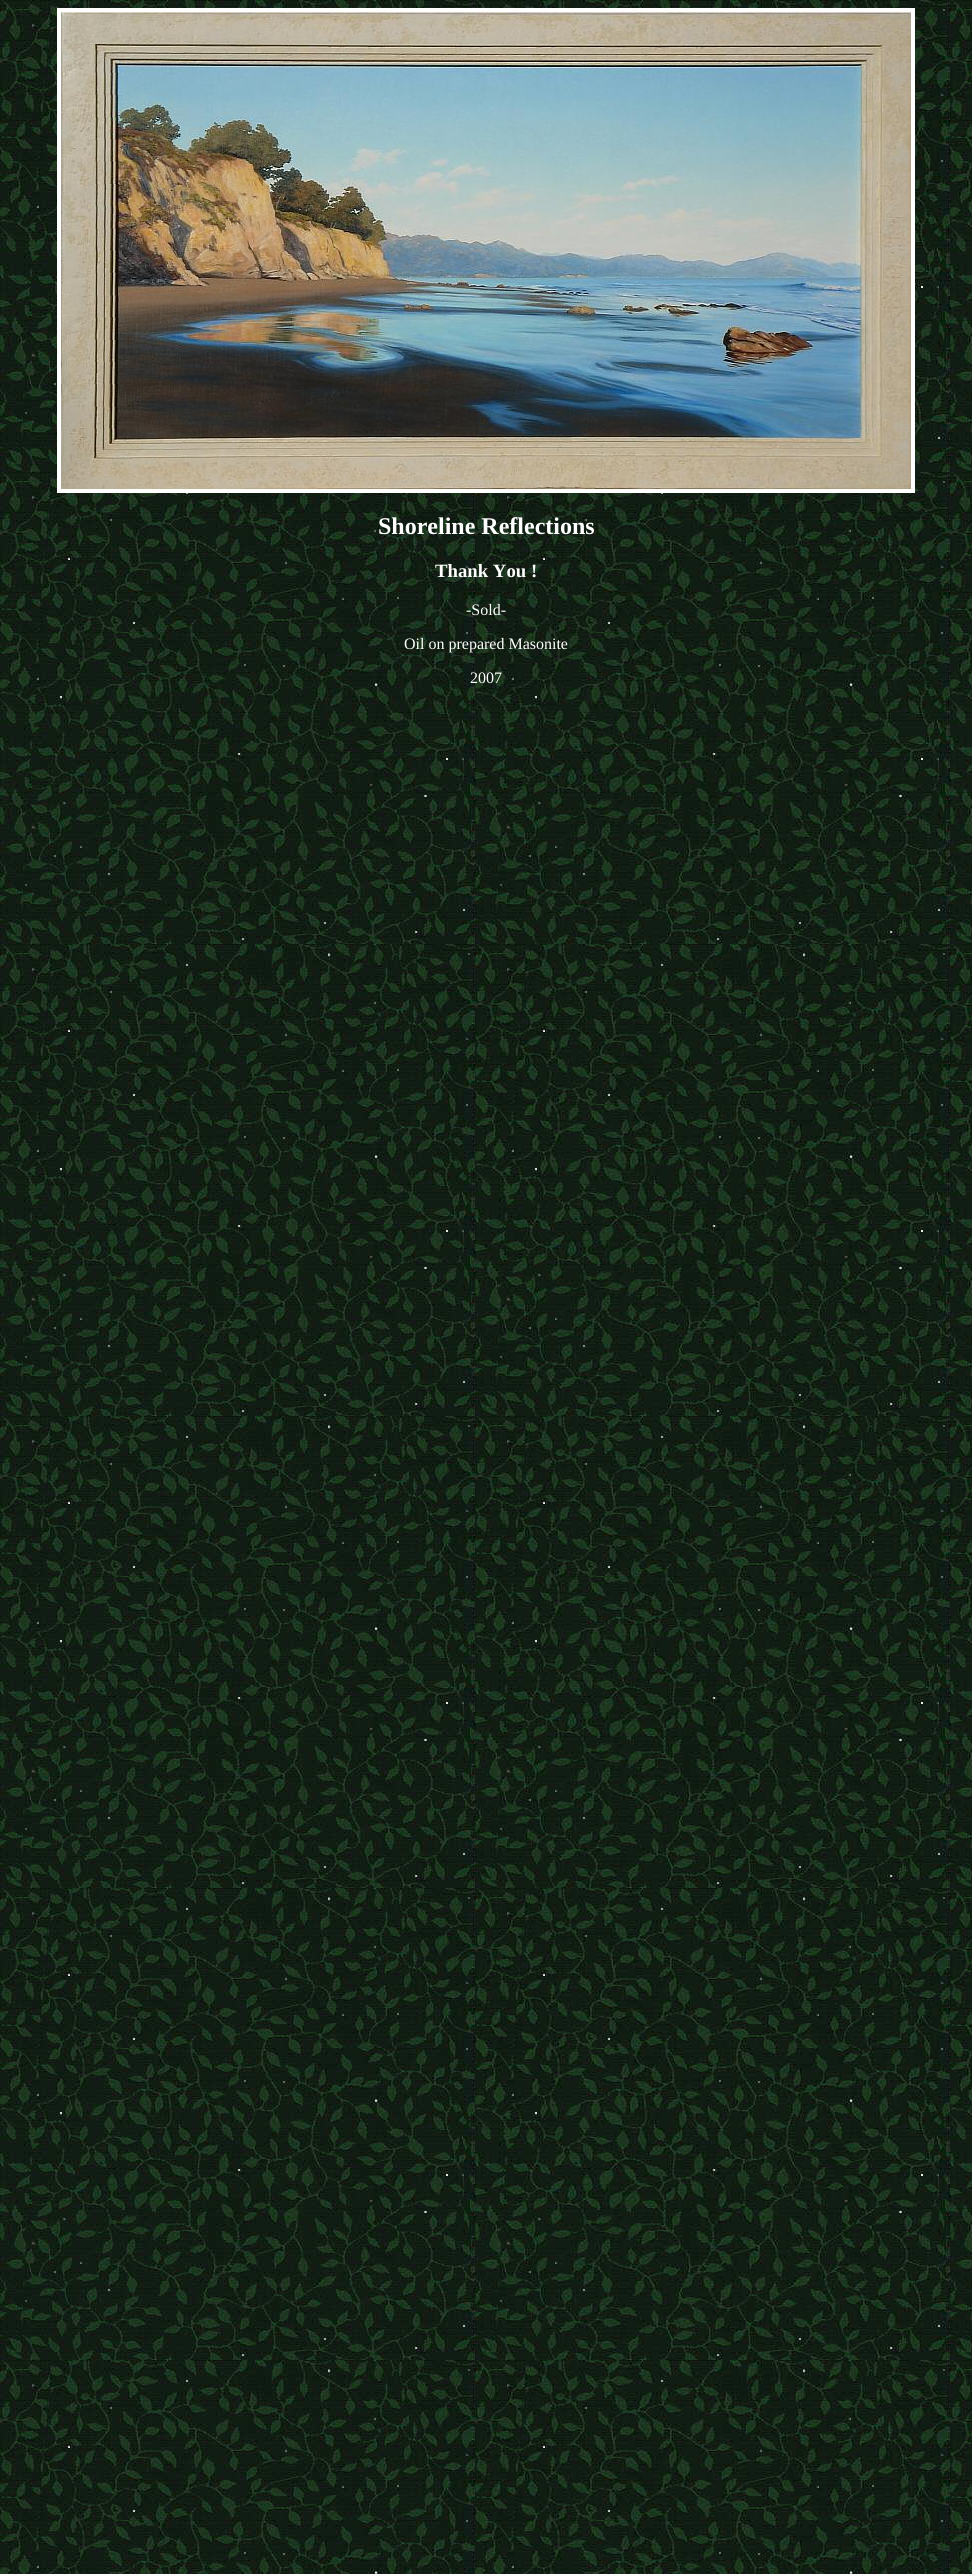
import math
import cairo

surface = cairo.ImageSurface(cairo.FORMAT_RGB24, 972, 2574)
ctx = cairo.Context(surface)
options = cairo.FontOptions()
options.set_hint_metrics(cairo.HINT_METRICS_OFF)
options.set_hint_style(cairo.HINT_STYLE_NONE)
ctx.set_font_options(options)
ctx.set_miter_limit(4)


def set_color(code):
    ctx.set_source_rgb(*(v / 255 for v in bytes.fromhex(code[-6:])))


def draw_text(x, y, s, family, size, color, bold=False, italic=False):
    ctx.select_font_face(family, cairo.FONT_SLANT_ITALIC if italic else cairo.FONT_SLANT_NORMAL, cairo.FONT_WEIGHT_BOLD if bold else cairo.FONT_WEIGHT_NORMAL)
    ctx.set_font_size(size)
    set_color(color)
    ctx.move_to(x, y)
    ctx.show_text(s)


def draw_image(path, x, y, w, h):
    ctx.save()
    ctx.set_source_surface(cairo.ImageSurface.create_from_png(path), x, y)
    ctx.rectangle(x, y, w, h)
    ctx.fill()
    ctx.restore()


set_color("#ffffff")
ctx.paint()
draw_image("assets/img1.png", 0, 0, 972, 2574)
ctx.rectangle(59, 10, 854, 481)
set_color("#ffffff")
ctx.set_line_width(4)
ctx.stroke()
draw_image("assets/img2.png", 61, 12, 850, 477)
draw_text(378, 534, "Shoreline Reflections", "Liberation Serif", 24, "#ffffff", bold=True)
draw_text(435, 577, "Thank You !", "Liberation Serif", 18.75, "#ffffff", bold=True)
draw_text(466, 615, "-Sold-", "Liberation Serif", 16, "#ffffff")
draw_text(404, 649, "Oil on prepared Masonite", "Liberation Serif", 16, "#ffffff")
draw_text(470, 683, "2007", "Liberation Serif", 16, "#ffffff")
surface.write_to_png("output.png")
